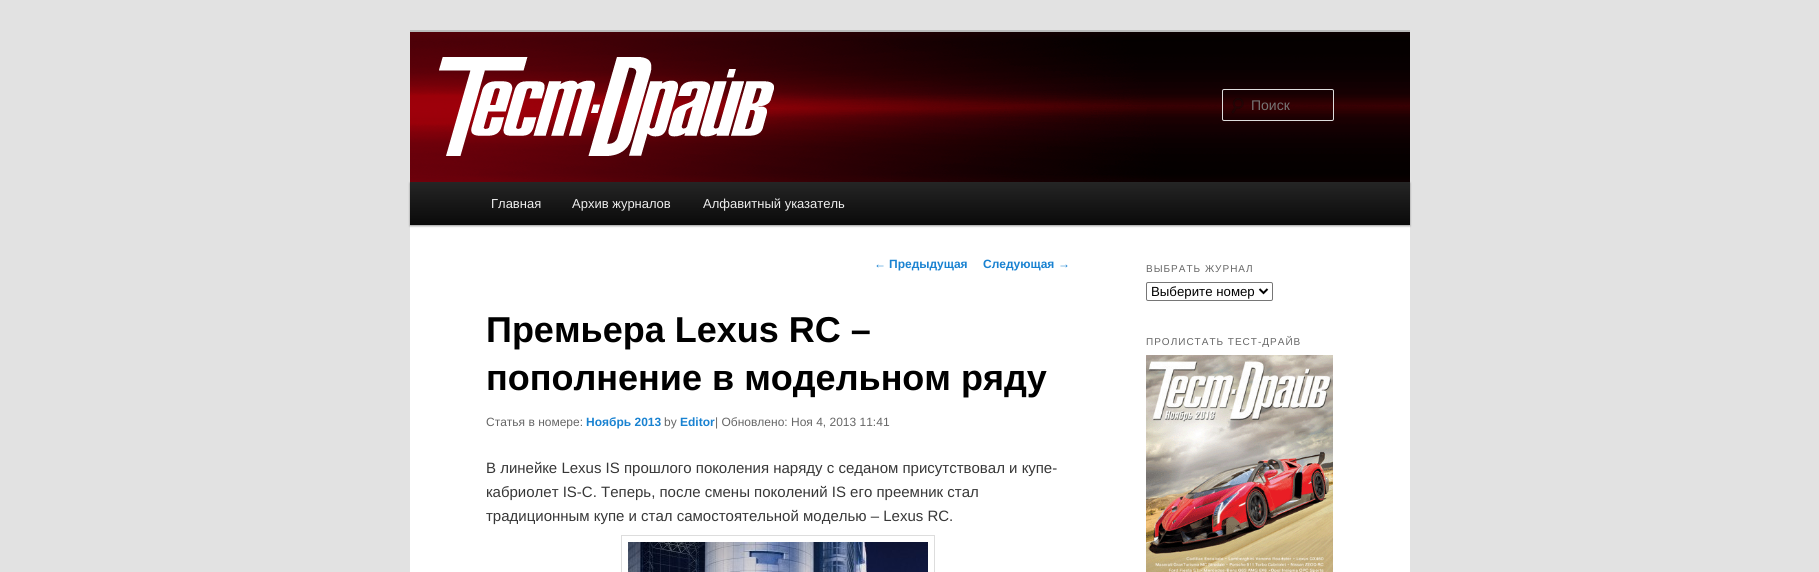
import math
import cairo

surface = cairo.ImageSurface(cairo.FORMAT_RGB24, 1819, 572)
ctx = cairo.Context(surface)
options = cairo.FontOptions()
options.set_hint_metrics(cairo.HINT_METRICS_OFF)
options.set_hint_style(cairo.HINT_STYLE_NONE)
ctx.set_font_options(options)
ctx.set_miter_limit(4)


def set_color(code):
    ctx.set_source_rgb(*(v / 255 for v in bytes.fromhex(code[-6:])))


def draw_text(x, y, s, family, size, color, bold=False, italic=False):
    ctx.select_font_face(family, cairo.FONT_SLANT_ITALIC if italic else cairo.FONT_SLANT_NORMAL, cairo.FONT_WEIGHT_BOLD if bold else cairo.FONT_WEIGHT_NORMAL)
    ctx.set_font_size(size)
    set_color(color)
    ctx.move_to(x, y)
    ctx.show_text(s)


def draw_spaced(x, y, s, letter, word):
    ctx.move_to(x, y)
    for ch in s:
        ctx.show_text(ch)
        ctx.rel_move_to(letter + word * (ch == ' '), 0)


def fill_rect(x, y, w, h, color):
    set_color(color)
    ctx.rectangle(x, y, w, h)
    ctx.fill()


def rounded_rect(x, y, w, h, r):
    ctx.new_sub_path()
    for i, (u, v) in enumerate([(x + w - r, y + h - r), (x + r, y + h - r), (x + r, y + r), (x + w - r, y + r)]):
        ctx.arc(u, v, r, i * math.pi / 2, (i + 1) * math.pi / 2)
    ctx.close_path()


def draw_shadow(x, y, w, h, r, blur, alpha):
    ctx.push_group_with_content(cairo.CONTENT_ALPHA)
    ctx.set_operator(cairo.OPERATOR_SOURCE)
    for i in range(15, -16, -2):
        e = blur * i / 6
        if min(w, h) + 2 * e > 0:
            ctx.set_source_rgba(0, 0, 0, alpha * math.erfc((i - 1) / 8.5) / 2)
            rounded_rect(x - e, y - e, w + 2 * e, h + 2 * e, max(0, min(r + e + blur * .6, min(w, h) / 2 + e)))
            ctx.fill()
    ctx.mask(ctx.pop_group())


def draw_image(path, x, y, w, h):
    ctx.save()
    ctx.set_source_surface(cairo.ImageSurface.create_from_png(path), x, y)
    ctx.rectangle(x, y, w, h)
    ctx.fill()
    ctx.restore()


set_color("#e2e2e2")
ctx.paint()
fill_rect(410, 225, 1000, 347, "#ffffff")
fill_rect(410, 30, 1000, 2, "#bbbbbb")
set_color("#000000")
draw_shadow(410, 183, 1000, 43, 0, 1, 0.4)
draw_image("assets/img1.png", 410, 32, 1000, 150)
draw_image("assets/img2.png", 1231, 98, 13, 16)
rounded_rect(1222.5, 89.5, 111, 31, 1.5)
set_color("#dddddd")
ctx.set_line_width(1)
ctx.stroke()
draw_text(1251, 110, "Поиск", "Liberation Sans", 14, "#757575")
gradient = cairo.LinearGradient(910, 182, 910, 225)
gradient.add_color_stop_rgba(0, 0.145, 0.145, 0.145, 1)
gradient.add_color_stop_rgba(1, 0.039, 0.039, 0.039, 1)
ctx.set_source(gradient)
ctx.rectangle(410, 182, 1000, 43)
ctx.fill()
draw_text(491, 208, "Главная", "Liberation Sans", 13, "#eeeeee")
draw_text(572, 208, "Архив журналов", "Liberation Sans", 13, "#eeeeee")
draw_text(703, 208, "Алфавитный указатель", "Liberation Sans", 13, "#eeeeee")
draw_text(874, 268, "←", "Liberation Sans", 12, "#1982d1")
draw_text(889, 268, "Предыдущая", "Liberation Sans", 12, "#1982d1", bold=True)
draw_text(983, 268, "Следующая", "Liberation Sans", 12, "#1982d1", bold=True)
draw_text(1058, 268, "→", "Liberation Sans", 12, "#1982d1")
draw_text(486, 342, "Премьера Lexus RC –", "Liberation Sans", 36, "#000000", bold=True)
draw_text(486, 390, "пополнение в модельном ряду", "Liberation Sans", 36, "#000000", bold=True)
draw_text(486, 426, "Статья в номере:", "Liberation Sans", 12, "#666666")
draw_text(586, 426, "Ноябрь 2013", "Liberation Sans", 12, "#1982d1", bold=True)
draw_text(664, 426, "by", "Liberation Sans", 12, "#666666")
draw_text(680, 426, "Editor", "Liberation Sans", 12, "#1982d1", bold=True)
draw_text(715, 426, "| Обновлено: Ноя 4, 2013 11:41", "Liberation Sans", 12, "#666666")
draw_text(486, 473, "В линейке Lexus IS прошлого поколения наряду с седаном присутствовал и купе-", "Liberation Sans", 15, "#373737")
draw_text(486, 497, "кабриолет IS-C. Теперь, после смены поколений IS его преемник стал", "Liberation Sans", 15, "#373737")
draw_text(486, 521, "традиционным купе и стал самостоятельной моделью – Lexus RC.", "Liberation Sans", 15, "#373737")
ctx.rectangle(621.5, 535.5, 313, 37)
set_color("#dddddd")
ctx.stroke()
draw_image("assets/img3.png", 628, 542, 300, 30)
ctx.set_font_size(10)
set_color("#666666")
draw_spaced(1146, 272, "ВЫБРАТЬ ЖУРНАЛ", 1, 0)
rounded_rect(1146.5, 282.5, 126, 18, 1.5)
set_color("#767676")
ctx.stroke()
ctx.new_path()
ctx.move_to(1259.5, 289)
ctx.line_to(1263.5, 293)
ctx.line_to(1267.5, 289)
set_color("#000000")
ctx.set_line_width(2)
ctx.stroke()
draw_text(1151, 296, "Выберите номер", "Liberation Sans", 13.25, "#000000")
ctx.set_font_size(10)
set_color("#666666")
draw_spaced(1146, 345, "ПРОЛИСТАТЬ ТЕСТ-ДРАЙВ", 1, 0)
draw_image("assets/img4.png", 1146, 355, 187, 217)
surface.write_to_png("output.png")
